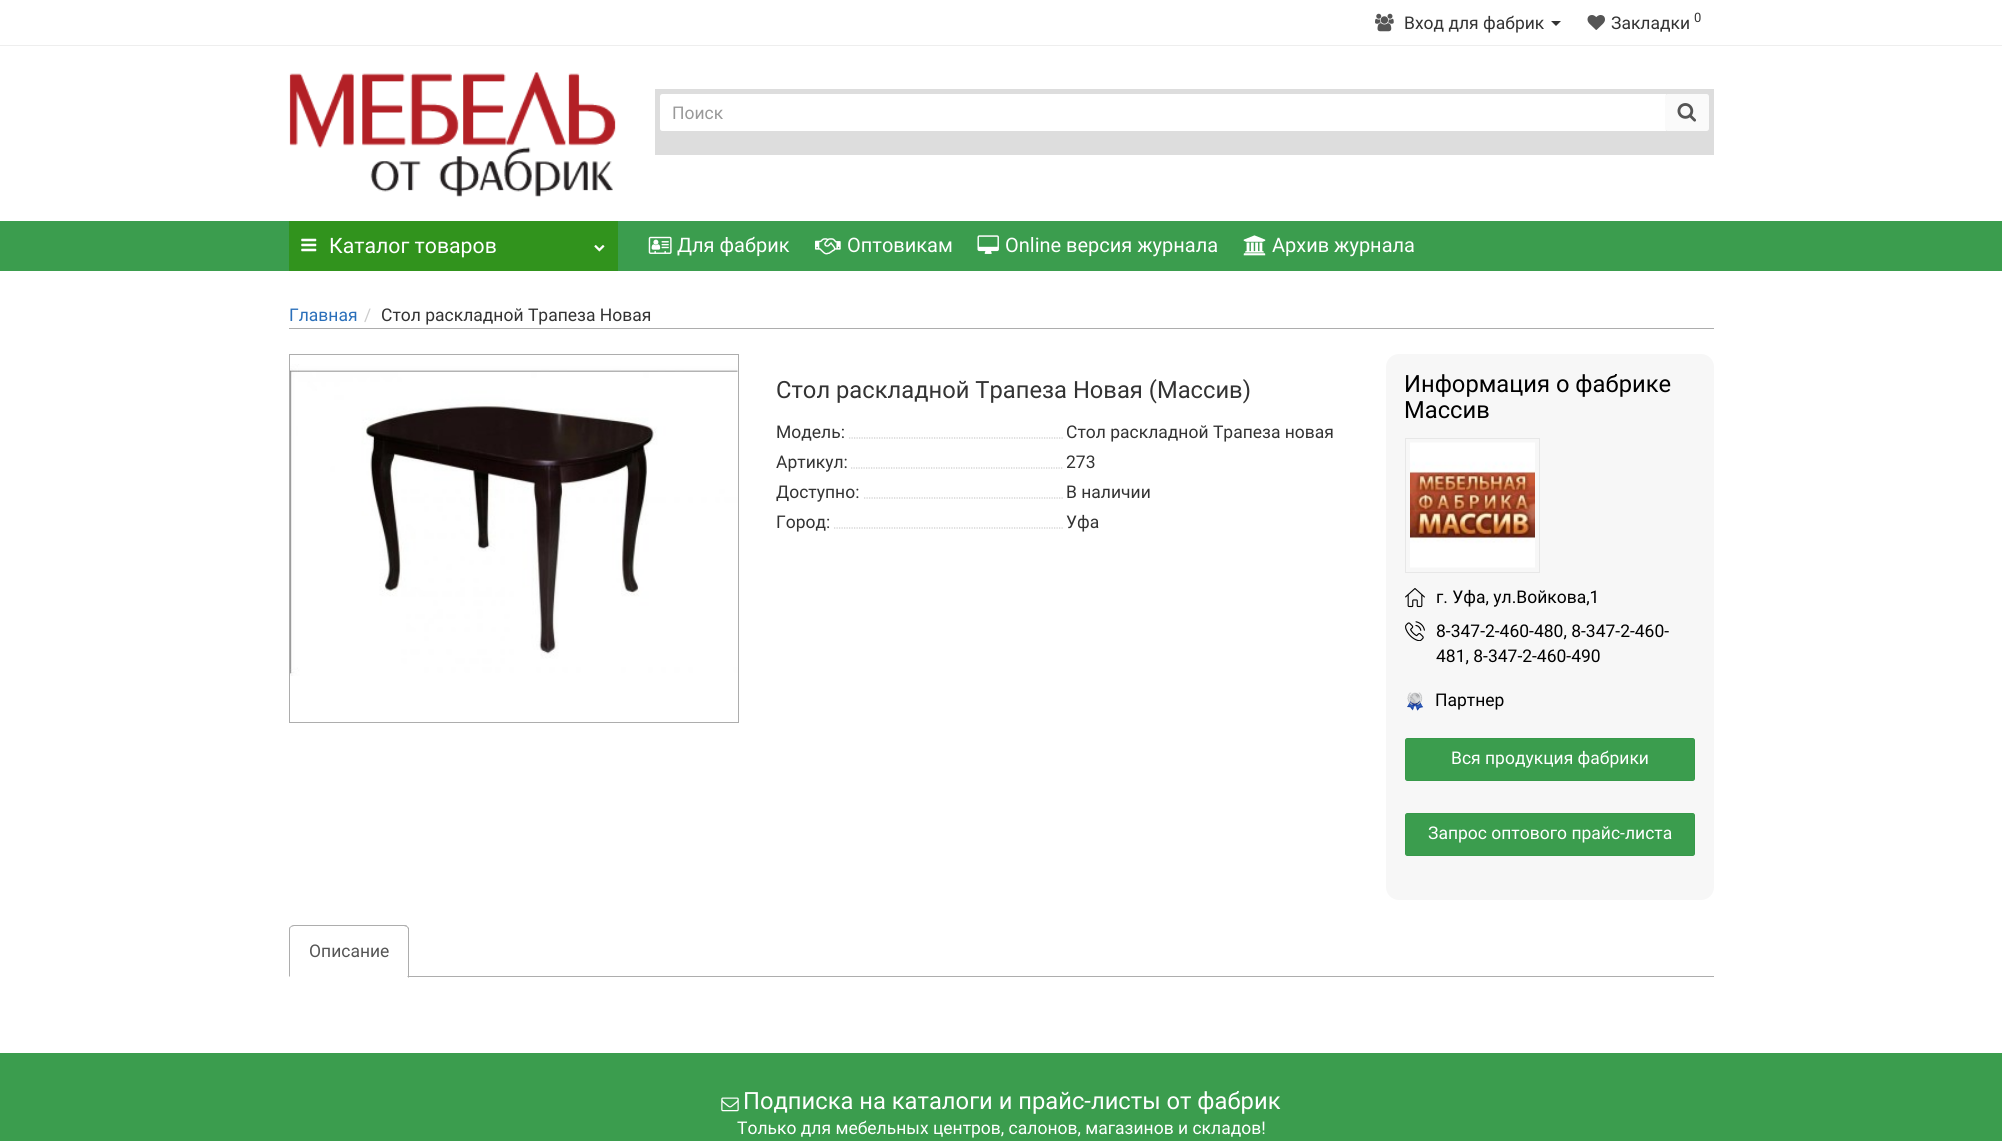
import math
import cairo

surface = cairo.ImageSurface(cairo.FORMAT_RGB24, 2002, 1141)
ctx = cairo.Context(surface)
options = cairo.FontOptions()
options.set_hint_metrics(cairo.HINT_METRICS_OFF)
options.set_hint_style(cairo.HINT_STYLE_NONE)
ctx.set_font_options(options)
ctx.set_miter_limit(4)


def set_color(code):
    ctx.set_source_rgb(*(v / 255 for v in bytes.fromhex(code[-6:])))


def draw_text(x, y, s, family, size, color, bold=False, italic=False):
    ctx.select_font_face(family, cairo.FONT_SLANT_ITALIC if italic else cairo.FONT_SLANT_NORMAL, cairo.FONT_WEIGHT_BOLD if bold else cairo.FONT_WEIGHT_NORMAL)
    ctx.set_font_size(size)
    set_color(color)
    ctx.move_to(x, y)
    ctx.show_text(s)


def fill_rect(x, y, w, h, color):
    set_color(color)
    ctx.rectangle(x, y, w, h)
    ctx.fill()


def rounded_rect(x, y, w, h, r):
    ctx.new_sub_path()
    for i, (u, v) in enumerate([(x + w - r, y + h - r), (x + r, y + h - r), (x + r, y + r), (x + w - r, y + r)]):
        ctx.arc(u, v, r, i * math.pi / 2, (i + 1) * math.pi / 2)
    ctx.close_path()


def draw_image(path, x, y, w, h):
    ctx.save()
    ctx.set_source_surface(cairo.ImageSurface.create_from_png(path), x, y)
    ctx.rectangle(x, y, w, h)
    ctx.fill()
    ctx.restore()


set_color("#ffffff")
ctx.paint()
fill_rect(0, 45, 2002, 1, "#eeeeee")
draw_image("assets/img1.png", 1375, 13, 19, 19)
draw_text(1404, 29, "Вход для фабрик", "Roboto", 17.5, "#333333")
ctx.new_path()
ctx.move_to(1551, 21)
ctx.line_to(1561, 21)
ctx.line_to(1556, 26)
ctx.close_path()
ctx.fill()
draw_image("assets/img2.png", 1587, 15, 18, 15)
draw_text(1611, 29, "Закладки", "Roboto", 17.5, "#333333")
draw_text(1694, 22, "0", "Roboto", 13, "#333333")
draw_image("assets/img3.png", 289, 72, 327, 125)
set_color("#dddddd")
ctx.rectangle(657.5, 91.5, 1054, 61)
ctx.fill_preserve()
ctx.set_line_width(5)
ctx.stroke()
set_color("#ffffff")
ctx.new_path()
ctx.move_to(662.5, 94)
ctx.line_to(1666, 94)
ctx.line_to(1666, 131)
ctx.line_to(662.5, 131)
ctx.curve_to(661, 131, 660, 130, 660, 128.5)
ctx.line_to(660, 96.5)
ctx.curve_to(660, 95, 661, 94, 662.5, 94)
ctx.close_path()
ctx.fill()
draw_text(672, 119, "Поиск", "Roboto", 17.5, "#999999")
set_color("#fafafa")
rounded_rect(1665, 94, 44, 37, 2.5)
ctx.fill()
draw_image("assets/img4.png", 1677, 103, 19, 19)
fill_rect(0, 221, 2002, 50, "#3b9d4e")
fill_rect(289, 221, 329, 50, "#31931d")
draw_image("assets/img5.png", 301, 238, 16, 14)
draw_text(329, 253, "Каталог товаров", "Roboto", 21.25, "#ffffff")
draw_image("assets/img6.png", 594, 245, 11, 7)
draw_image("assets/img7.png", 648, 236, 24, 18)
draw_text(677, 252, "Для фабрик", "Roboto", 20, "#ffffff")
draw_image("assets/img8.png", 815, 238, 26, 17)
draw_text(847, 252, "Оптовикам", "Roboto", 20, "#ffffff")
draw_image("assets/img9.png", 977, 235, 22, 19)
draw_text(1005, 252, "Online версия журнала", "Roboto", 20, "#ffffff")
draw_image("assets/img10.png", 1243, 235, 23, 21)
draw_text(1272, 252, "Архив журнала", "Roboto", 20, "#ffffff")
fill_rect(289, 328, 1425, 1, "#adadad")
draw_text(289, 321, "Главная", "Roboto", 17.5, "#2a6fba")
draw_text(364, 321, "/", "Roboto", 17.5, "#cccccc")
draw_text(381, 321, "Стол раскладной Трапеза Новая", "Roboto", 17.5, "#333333")
ctx.rectangle(289.5, 354.5, 449, 368)
set_color("#adadad")
ctx.set_line_width(1)
ctx.stroke()
draw_image("assets/img11.png", 290, 364, 448, 312)
draw_text(776, 398, "Стол раскладной Трапеза Новая (Массив)", "Roboto", 23.75, "#333333")
draw_text(776, 438, "Модель:", "Roboto", 17.5, "#333333")
ctx.save()
ctx.rectangle(776, 418, 287, 30)
ctx.clip()
ctx.new_path()
ctx.move_to(849, 438)
ctx.line_to(1135, 438)
set_color("#cccccc")
ctx.set_line_width(1.2)
ctx.set_dash([1.25, 1.25])
ctx.stroke()
ctx.restore()
draw_text(1066, 438, "Стол раскладной Трапеза новая", "Roboto", 17.5, "#333333")
draw_text(776, 468, "Артикул:", "Roboto", 17.5, "#333333")
ctx.save()
ctx.rectangle(776, 448, 287, 30)
ctx.clip()
ctx.new_path()
ctx.move_to(851, 468)
ctx.line_to(1137.5, 468)
set_color("#cccccc")
ctx.set_line_width(1.2)
ctx.set_dash([1.25, 1.25])
ctx.stroke()
ctx.restore()
draw_text(1066, 468, "273", "Roboto", 17.5, "#333333")
draw_text(776, 498, "Доступно:", "Roboto", 17.5, "#333333")
ctx.save()
ctx.rectangle(776, 478, 287, 30)
ctx.clip()
ctx.new_path()
ctx.move_to(864, 498)
ctx.line_to(1149, 498)
set_color("#cccccc")
ctx.set_line_width(1.2)
ctx.set_dash([1.25, 1.25])
ctx.stroke()
ctx.restore()
draw_text(1066, 498, "В наличии", "Roboto", 17.5, "#333333")
draw_text(776, 528, "Город:", "Roboto", 17.5, "#333333")
ctx.save()
ctx.rectangle(776, 508, 287, 30)
ctx.clip()
ctx.new_path()
ctx.move_to(834, 528)
ctx.line_to(1120, 528)
set_color("#cccccc")
ctx.set_line_width(1.2)
ctx.set_dash([1.25, 1.25])
ctx.stroke()
ctx.restore()
draw_text(1066, 528, "Уфа", "Roboto", 17.5, "#333333")
set_color("#f7f7f7")
rounded_rect(1386, 354, 328, 546, 13)
ctx.fill()
draw_text(1404, 392, "Информация о фабрике", "Roboto", 23.75, "#000000")
draw_text(1404, 418, "Массив", "Roboto", 23.75, "#000000")
ctx.rectangle(1405.5, 438.5, 134, 134)
set_color("#e7e7e7")
ctx.stroke()
draw_image("assets/img12.png", 1410, 442, 125, 126)
draw_image("assets/img13.png", 1405, 588, 20, 20)
draw_text(1436, 603, "г. Уфа, ул.Войкова,1", "Roboto", 17.5, "#000000")
draw_image("assets/img14.png", 1405, 621, 20, 20)
draw_text(1436, 637, "8-347-2-460-480, 8-347-2-460-", "Roboto", 17.5, "#000000")
draw_text(1436, 662, "481, 8-347-2-460-490", "Roboto", 17.5, "#000000")
draw_image("assets/img15.png", 1407, 692, 17, 19)
draw_text(1435, 706, "Партнер", "Roboto", 17.5, "#000000")
set_color("#3b9d4e")
rounded_rect(1405.5, 738.5, 289, 42, 2)
ctx.fill_preserve()
set_color("#37994a")
ctx.stroke()
draw_text(1451, 764, "Вся продукция фабрики", "Roboto", 17.5, "#ffffff")
set_color("#3b9d4e")
rounded_rect(1405.5, 813.5, 289, 42, 2)
ctx.fill_preserve()
set_color("#37994a")
ctx.stroke()
draw_text(1428, 839, "Запрос оптового прайс-листа", "Roboto", 17.5, "#ffffff")
fill_rect(409, 976, 1305, 1, "#adadad")
ctx.new_path()
ctx.move_to(294, 925)
ctx.curve_to(292, 925, 291, 926, 290, 927)
ctx.line_to(291, 927)
ctx.line_to(294, 926)
ctx.line_to(404, 926)
ctx.line_to(407, 927)
ctx.line_to(407, 926)
ctx.curve_to(407, 925, 405, 925, 404, 925)
ctx.close_path()
ctx.fill()
ctx.new_path()
ctx.move_to(407, 926)
ctx.line_to(409, 928)
ctx.line_to(409, 978)
ctx.line_to(407, 976)
ctx.line_to(408, 976)
ctx.line_to(408, 929)
ctx.line_to(407, 927)
ctx.close_path()
ctx.fill()
ctx.new_path()
ctx.move_to(290, 927)
ctx.curve_to(289, 927, 289, 929, 289, 930)
ctx.line_to(289, 977)
ctx.line_to(290, 976)
ctx.line_to(290, 930)
ctx.curve_to(290, 929, 290, 928, 291, 927)
ctx.close_path()
ctx.fill()
draw_text(309, 957, "Описание", "Roboto", 17.5, "#555555")
fill_rect(0, 1053, 2002, 88, "#3b9d4e")
draw_image("assets/img16.png", 721, 1097, 18, 15)
draw_text(743, 1109, "Подписка на каталоги и прайс-листы от фабрик", "Roboto", 23.75, "#ffffff")
draw_text(737, 1134, "Только для мебельных центров, салонов, магазинов и складов!", "Roboto", 17.5, "#ffffff")
surface.write_to_png("output.png")
